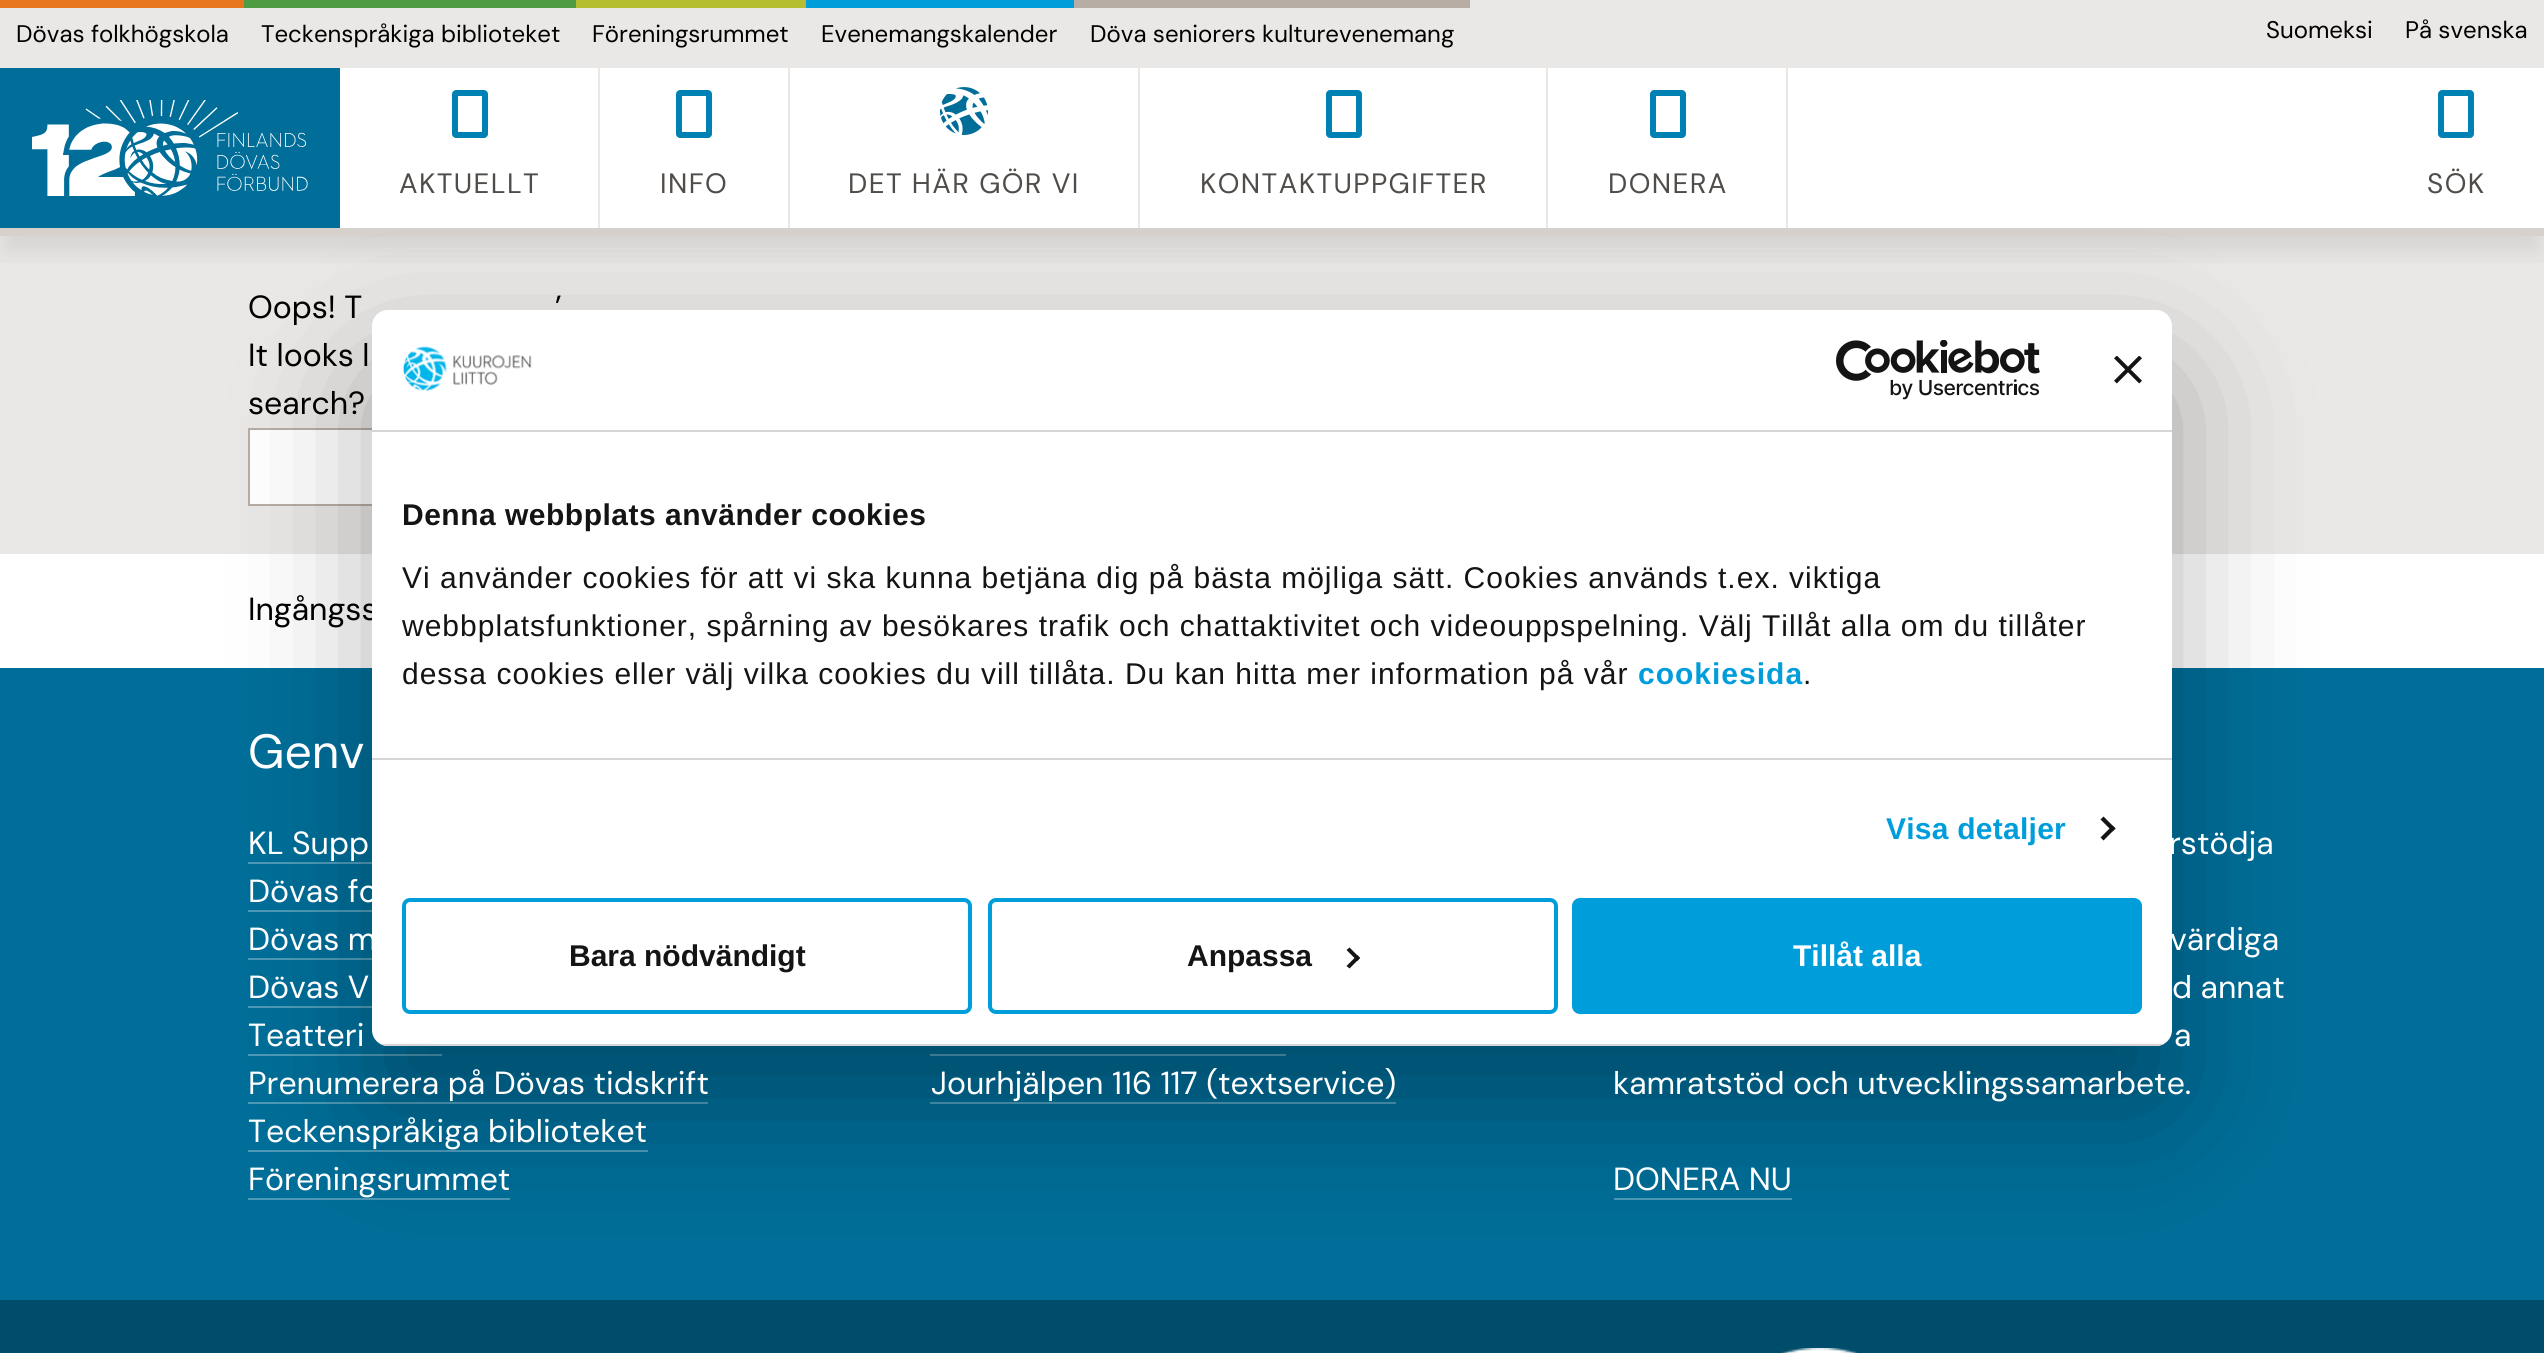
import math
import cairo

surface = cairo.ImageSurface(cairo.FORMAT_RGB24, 2544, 1353)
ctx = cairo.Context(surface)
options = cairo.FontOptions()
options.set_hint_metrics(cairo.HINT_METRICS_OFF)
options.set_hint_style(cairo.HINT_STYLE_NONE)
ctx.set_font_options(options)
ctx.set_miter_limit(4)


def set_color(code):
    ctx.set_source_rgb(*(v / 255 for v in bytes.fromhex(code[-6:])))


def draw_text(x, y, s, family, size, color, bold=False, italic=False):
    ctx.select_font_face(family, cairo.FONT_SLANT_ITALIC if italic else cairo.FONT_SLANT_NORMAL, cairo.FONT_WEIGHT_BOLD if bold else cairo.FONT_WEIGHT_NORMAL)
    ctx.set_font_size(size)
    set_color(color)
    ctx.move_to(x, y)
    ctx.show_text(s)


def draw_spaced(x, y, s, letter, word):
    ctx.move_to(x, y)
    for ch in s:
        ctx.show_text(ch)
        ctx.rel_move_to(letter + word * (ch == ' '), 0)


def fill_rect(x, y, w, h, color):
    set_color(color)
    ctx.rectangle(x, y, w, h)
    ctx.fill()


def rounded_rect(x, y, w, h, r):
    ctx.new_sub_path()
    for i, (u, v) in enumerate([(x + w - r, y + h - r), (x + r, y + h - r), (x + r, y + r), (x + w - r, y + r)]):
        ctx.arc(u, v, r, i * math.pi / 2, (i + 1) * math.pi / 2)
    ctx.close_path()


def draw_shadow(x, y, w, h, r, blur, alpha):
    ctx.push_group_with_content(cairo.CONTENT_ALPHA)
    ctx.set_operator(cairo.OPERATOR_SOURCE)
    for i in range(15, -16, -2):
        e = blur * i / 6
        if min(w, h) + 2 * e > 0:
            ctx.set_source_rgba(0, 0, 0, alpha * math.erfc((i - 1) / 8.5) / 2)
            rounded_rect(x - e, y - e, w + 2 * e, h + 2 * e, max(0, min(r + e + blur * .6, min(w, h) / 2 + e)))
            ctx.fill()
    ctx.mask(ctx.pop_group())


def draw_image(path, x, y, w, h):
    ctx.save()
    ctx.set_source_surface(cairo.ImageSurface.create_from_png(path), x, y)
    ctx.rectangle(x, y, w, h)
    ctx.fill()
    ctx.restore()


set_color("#eae8e6")
ctx.paint()
ctx.save()
ctx.rectangle(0, 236, 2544, 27)
ctx.clip()
set_color("#000000")
draw_shadow(6, 26, 2532, 224, 0, 15, 0.1)
ctx.restore()
fill_rect(0, 228, 2544, 8, "#d6d1cd")
fill_rect(0, 0, 244, 8, "#e7751d")
draw_text(16, 42, "Dövas folkhögskola", "DM Sans", 24, "#000000")
fill_rect(244, 0, 332, 8, "#4d9c44")
draw_text(261, 42, "Teckenspråkiga biblioteket", "DM Sans", 24, "#000000")
fill_rect(576, 0, 230, 8, "#b5be31")
draw_text(592, 42, "Föreningsrummet", "DM Sans", 24, "#000000")
fill_rect(806, 0, 268, 8, "#009ddb")
draw_text(821, 42, "Evenemangskalender", "DM Sans", 24, "#000000")
fill_rect(1074, 0, 396, 8, "#b7ada5")
draw_text(1090, 42, "Döva seniorers kulturevenemang", "DM Sans", 24, "#000000")
draw_text(2266, 38, "Suomeksi", "DM Sans", 24, "#000000")
draw_text(2405, 38, "På svenska", "DM Sans", 24, "#000000")
fill_rect(0, 68, 340, 160, "#006e99")
draw_image("assets/img1.png", 32, 100, 276, 96)
fill_rect(340, 68, 2204, 160, "#ffffff")
fill_rect(598, 68, 2, 160, "#eae8e6")
draw_image("assets/img2.png", 452, 90, 36, 48)
draw_image("assets/img3.png", 452, 90, 36, 48)
ctx.set_font_size(28)
set_color("#504c49")
draw_spaced(399, 193, "AKTUELLT", 1.4, 0)
fill_rect(788, 68, 2, 160, "#eae8e6")
draw_image("assets/img2.png", 676, 90, 36, 48)
draw_image("assets/img3.png", 676, 90, 36, 48)
set_color("#504c49")
draw_spaced(660, 193, "INFO", 1.4, 0)
fill_rect(1138, 68, 2, 160, "#eae8e6")
draw_image("assets/img4.png", 940, 87, 48, 48)
set_color("#504c49")
draw_spaced(848, 193, "DET HÄR GÖR VI", 1.4, 0)
fill_rect(1546, 68, 2, 160, "#eae8e6")
draw_image("assets/img2.png", 1326, 90, 36, 48)
draw_image("assets/img3.png", 1326, 90, 36, 48)
set_color("#504c49")
draw_spaced(1200, 193, "KONTAKTUPPGIFTER", 1.4, 0)
fill_rect(1786, 68, 2, 160, "#eae8e6")
draw_image("assets/img2.png", 1650, 90, 36, 48)
draw_image("assets/img3.png", 1650, 90, 36, 48)
set_color("#504c49")
draw_spaced(1608, 193, "DONERA", 1.4, 0)
draw_image("assets/img2.png", 2438, 90, 36, 48)
draw_image("assets/img3.png", 2438, 90, 36, 48)
draw_spaced(2427, 193, "SÖK", 1.4, 0)
draw_text(248, 318, "Oops! T", "DM Sans", 32, "#000000")
draw_text(555, 318, "’", "DM Sans", 32, "#000000")
draw_text(248, 366, "It looks l", "DM Sans", 32, "#000000")
draw_text(248, 414, "search?", "DM Sans", 32, "#000000")
fill_rect(250, 430, 122, 74, "#ffffff")
ctx.rectangle(249, 429, 1238, 76)
set_color("#b7ada5")
ctx.stroke()
fill_rect(0, 554, 2544, 114, "#ffffff")
draw_text(248, 620, "Ingångss", "DM Sans", 32, "#000000")
fill_rect(0, 668, 2544, 632, "#006e99")
fill_rect(248, 862, 124, 2, "#4d9ab8")
fill_rect(248, 910, 124, 2, "#4d9ab8")
fill_rect(248, 958, 124, 2, "#4d9ab8")
fill_rect(248, 1006, 124, 2, "#4d9ab8")
fill_rect(248, 1054, 194, 2, "#4d9ab8")
fill_rect(248, 1102, 460, 2, "#4d9ab8")
fill_rect(248, 1150, 400, 2, "#4d9ab8")
fill_rect(248, 1198, 262, 2, "#4d9ab8")
fill_rect(930, 1054, 356, 2, "#4d9ab8")
fill_rect(930, 1102, 466, 2, "#4d9ab8")
fill_rect(1614, 1198, 178, 2, "#4d9ab8")
fill_rect(0, 1300, 2544, 53, "#004d6b")
set_color("#000000")
draw_shadow(372, 374, 1800, 736, 16, 68, 0.3)
set_color("#ffffff")
rounded_rect(372, 310, 1800, 736, 16)
ctx.fill()
fill_rect(372, 430, 1800, 2, "#d6d6d6")
draw_image("assets/img5.png", 403, 346, 129, 45)
draw_image("assets/img6.png", 1836, 340, 204, 60)
draw_image("assets/img7.png", 2114, 356, 28, 28)
fill_rect(372, 758, 1800, 2, "#d6d6d6")
ctx.select_font_face("Liberation Sans", cairo.FONT_SLANT_NORMAL, cairo.FONT_WEIGHT_BOLD)
ctx.set_font_size(30)
set_color("#141414")
draw_spaced(402, 525, "Denna webbplats använder cookies", 0.5, 0)
ctx.select_font_face("Liberation Sans")
draw_spaced(402, 588, "Vi använder cookies för att vi ska kunna betjäna dig på bästa möjliga sätt. Cookies används t.ex. viktiga", 1, 0)
draw_spaced(402, 636, "webbplatsfunktioner, spårning av besökares trafik och chattaktivitet och videouppspelning. Välj Tillåt alla om du tillåter", 1, 0)
draw_spaced(402, 684, "dessa cookies eller välj vilka cookies du vill tillåta. Du kan hitta mer information på vår", 1, 0)
ctx.select_font_face("Liberation Sans", cairo.FONT_SLANT_NORMAL, cairo.FONT_WEIGHT_BOLD)
set_color("#009ddb")
draw_spaced(1638, 684, "cookiesida", 1, 0)
ctx.select_font_face("Liberation Sans")
set_color("#141414")
draw_spaced(1803, 684, ".", 1, 0)
ctx.select_font_face("Liberation Sans", cairo.FONT_SLANT_NORMAL, cairo.FONT_WEIGHT_BOLD)
set_color("#009ddb")
draw_spaced(1886, 839, "Visa detaljer", 0.25, 0)
set_color("#141414")
ctx.new_path()
ctx.move_to(2103.5, 816.5)
ctx.line_to(2115.5, 828.5)
ctx.line_to(2112.5, 831.5)
ctx.line_to(2100.5, 819.5)
ctx.close_path()
ctx.fill()
ctx.new_path()
ctx.move_to(2112.5, 825.5)
ctx.line_to(2115.5, 828.5)
ctx.line_to(2103.5, 840.5)
ctx.line_to(2100.5, 837.5)
ctx.close_path()
ctx.fill()
ctx.save()
rounded_rect(372, 310, 1800, 736, 16)
ctx.clip()
fill_rect(372, 1044, 1800, 2, "#d6d6d6")
ctx.restore()
rounded_rect(404, 900, 566, 112, 6)
set_color("#009ddb")
ctx.set_line_width(4)
ctx.stroke()
draw_text(569, 966, "Bara nödvändigt", "Liberation Sans", 30, "#141414", bold=True)
rounded_rect(990, 900, 566, 112, 6)
set_color("#009ddb")
ctx.stroke()
draw_text(1187, 966, "Anpassa", "Liberation Sans", 30, "#141414", bold=True)
ctx.new_path()
ctx.move_to(1349.5, 947.5)
ctx.line_to(1360, 958)
ctx.line_to(1357.5, 961)
ctx.line_to(1346.5, 950)
ctx.close_path()
ctx.fill()
ctx.new_path()
ctx.move_to(1357.5, 955)
ctx.line_to(1360, 958)
ctx.line_to(1349.5, 968.5)
ctx.line_to(1346.5, 966)
ctx.close_path()
ctx.fill()
set_color("#009ddb")
rounded_rect(1574, 900, 566, 112, 6)
ctx.fill_preserve()
ctx.stroke()
draw_text(1793, 966, "Tillåt alla", "Liberation Sans", 30, "#ffffff", bold=True)
draw_text(248, 768, "Genv", "DM Sans", 48, "#ffffff")
draw_text(248, 854, "KL Supp", "DM Sans", 32, "#ffffff")
draw_text(248, 902, "Dövas fo", "DM Sans", 32, "#ffffff")
draw_text(248, 950, "Dövas m", "DM Sans", 32, "#ffffff")
draw_text(248, 998, "Dövas V", "DM Sans", 32, "#ffffff")
draw_text(248, 1046, "Teatteri", "DM Sans", 32, "#ffffff")
draw_text(248, 1094, "Prenumerera på Dövas tidskrift", "DM Sans", 32, "#ffffff")
draw_text(248, 1142, "Teckenspråkiga biblioteket", "DM Sans", 32, "#ffffff")
draw_text(248, 1190, "Föreningsrummet", "DM Sans", 32, "#ffffff")
draw_text(931, 1094, "Jourhjälpen 116 117 (textservice)", "DM Sans", 32, "#ffffff")
draw_text(2169, 854, "rstödja", "DM Sans", 32, "#ffffff")
draw_text(2170, 950, "värdiga", "DM Sans", 32, "#ffffff")
draw_text(2172, 998, "d annat", "DM Sans", 32, "#ffffff")
draw_text(2174, 1046, "a", "DM Sans", 32, "#ffffff")
draw_text(1613, 1094, "kamratstöd och utvecklingssamarbete.", "DM Sans", 32, "#ffffff")
draw_text(1613, 1190, "DONERA NU", "DM Sans", 32, "#ffffff")
draw_image("assets/img8.png", 1781, 1348, 77, 5)
surface.write_to_png("output.png")
